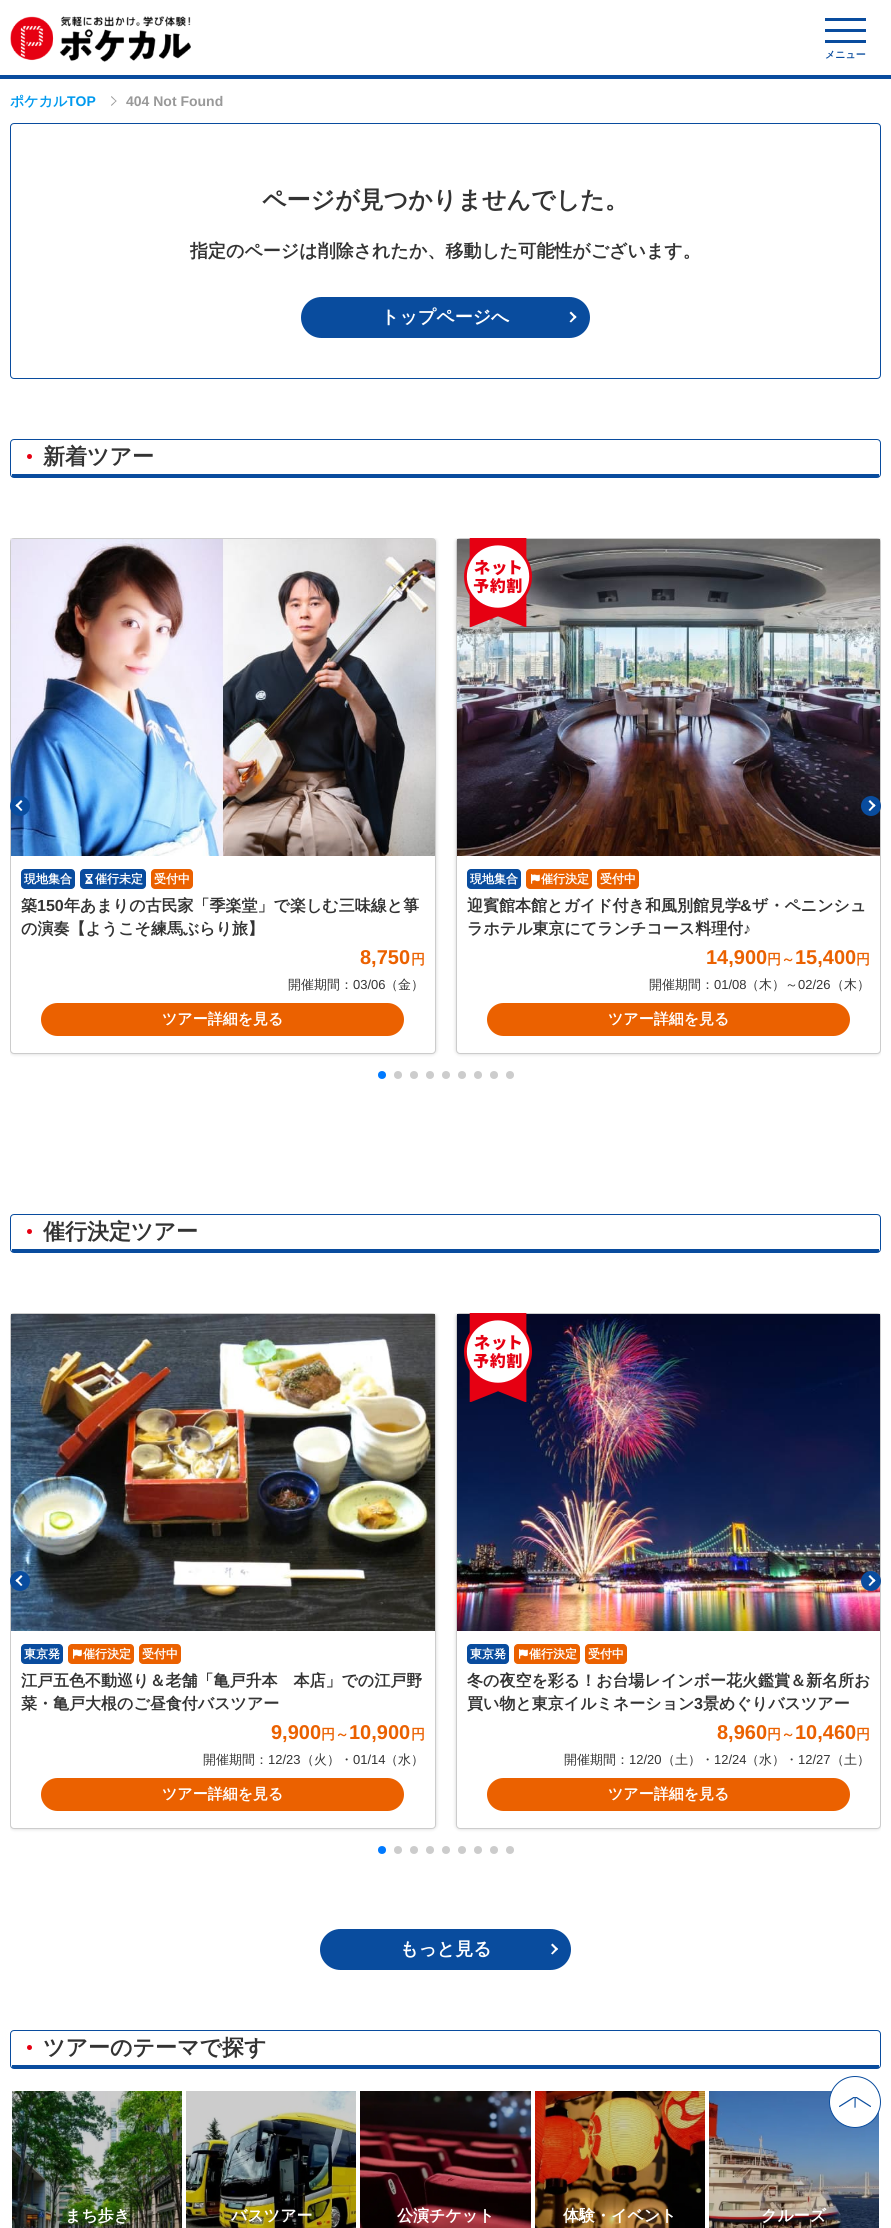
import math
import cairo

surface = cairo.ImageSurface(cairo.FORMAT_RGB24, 891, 2228)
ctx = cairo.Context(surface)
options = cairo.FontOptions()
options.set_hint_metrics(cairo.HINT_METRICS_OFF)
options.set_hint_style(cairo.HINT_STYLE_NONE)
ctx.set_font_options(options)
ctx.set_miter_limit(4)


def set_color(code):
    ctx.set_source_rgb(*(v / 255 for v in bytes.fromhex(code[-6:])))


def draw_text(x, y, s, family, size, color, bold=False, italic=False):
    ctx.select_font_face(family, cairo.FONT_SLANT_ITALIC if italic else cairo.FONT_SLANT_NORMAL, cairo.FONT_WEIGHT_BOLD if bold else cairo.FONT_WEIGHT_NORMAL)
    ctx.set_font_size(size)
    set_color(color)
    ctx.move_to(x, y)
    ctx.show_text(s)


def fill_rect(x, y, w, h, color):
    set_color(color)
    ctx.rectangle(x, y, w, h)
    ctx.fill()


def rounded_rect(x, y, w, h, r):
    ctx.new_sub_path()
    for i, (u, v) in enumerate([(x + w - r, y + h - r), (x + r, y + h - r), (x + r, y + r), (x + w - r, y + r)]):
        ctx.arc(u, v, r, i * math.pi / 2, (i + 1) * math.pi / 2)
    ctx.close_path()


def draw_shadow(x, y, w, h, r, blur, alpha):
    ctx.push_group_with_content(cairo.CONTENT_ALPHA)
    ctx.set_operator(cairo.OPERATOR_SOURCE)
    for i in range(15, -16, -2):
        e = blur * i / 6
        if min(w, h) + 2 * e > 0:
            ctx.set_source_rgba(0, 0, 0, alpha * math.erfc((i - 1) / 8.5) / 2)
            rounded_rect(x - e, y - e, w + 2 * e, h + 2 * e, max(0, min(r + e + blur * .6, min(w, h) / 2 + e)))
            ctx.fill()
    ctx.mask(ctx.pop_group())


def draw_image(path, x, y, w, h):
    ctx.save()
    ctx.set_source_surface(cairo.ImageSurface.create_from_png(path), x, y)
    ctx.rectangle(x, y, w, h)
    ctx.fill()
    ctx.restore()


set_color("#ffffff")
ctx.paint()
fill_rect(0, 75, 891, 4, "#094c9e")
draw_image("assets/img1.png", 10, 16, 181, 46)
fill_rect(825, 18, 41, 3, "#094c9e")
fill_rect(825, 29, 41, 3, "#094c9e")
fill_rect(825, 40, 41, 3, "#094c9e")
draw_text(825, 58, "メニュー", "WenQuanYi Zen Hei", 10, "#094c9e", bold=True)
draw_text(10, 106, "ポケカル", "WenQuanYi Zen Hei", 14, "#0099ee", bold=True)
draw_text(67, 106, "TOP", "Liberation Sans", 14, "#0099ee", bold=True)
set_color("#999999")
ctx.new_path()
ctx.move_to(111.5, 96)
ctx.line_to(116.5, 101)
ctx.line_to(116, 101.5)
ctx.line_to(111, 97)
ctx.close_path()
ctx.fill()
ctx.new_path()
ctx.move_to(116, 100.5)
ctx.line_to(116.5, 101)
ctx.line_to(111.5, 106)
ctx.line_to(111, 105)
ctx.close_path()
ctx.fill()
draw_text(126, 106, "404 Not Found", "Liberation Sans", 14, "#999999", bold=True)
rounded_rect(10.5, 123.5, 870, 255, 3.5)
set_color("#094c9e")
ctx.set_line_width(1)
ctx.stroke()
draw_text(262, 208, "ページが見つかりませんでした。", "WenQuanYi Zen Hei", 24, "#333333", bold=True)
draw_text(190, 257, "指定のページは削除されたか、移動した可能性がございます。", "WenQuanYi Zen Hei", 18, "#333333", bold=True)
set_color("#094c9e")
rounded_rect(301, 297, 289, 41, 20.5)
ctx.fill()
draw_text(381, 323, "トップページへ", "WenQuanYi Zen Hei", 18, "#ffffff", bold=True)
ctx.new_path()
ctx.move_to(571, 311.5)
ctx.line_to(576.5, 317)
ctx.line_to(575, 318.5)
ctx.line_to(569.5, 313)
ctx.close_path()
ctx.fill()
ctx.new_path()
ctx.move_to(575, 315.5)
ctx.line_to(576.5, 317)
ctx.line_to(571, 322.5)
ctx.line_to(569.5, 321.5)
ctx.close_path()
ctx.fill()
rounded_rect(10.5, 439.5, 870, 38, 3.5)
set_color("#094c9e")
ctx.stroke()
fill_rect(12, 474, 867, 3, "#094c9e")
set_color("#e60012")
ctx.arc(29.5, 456.5, 2.5, 0, 2 * math.pi)
ctx.fill()
draw_text(43, 464, "新着ツアー", "WenQuanYi Zen Hei", 22, "#333333", bold=True)
ctx.save()
ctx.rectangle(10, 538, 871, 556)
ctx.clip()
set_color("#000000")
draw_shadow(10, 538, 426, 516, 4, 2, 0.16)
ctx.restore()
set_color("#ffffff")
rounded_rect(10.5, 538.5, 425, 515, 3.5)
ctx.fill_preserve()
set_color("#cccccc")
ctx.stroke()
draw_image("assets/img2.png", 11, 539, 424, 317)
set_color("#094c9e")
ctx.arc(20, 806, 10, 0, 2 * math.pi)
ctx.fill()
set_color("#ffffff")
ctx.new_path()
ctx.move_to(15.5, 805.5)
ctx.line_to(21, 800)
ctx.line_to(22.5, 801.5)
ctx.line_to(17, 807)
ctx.close_path()
ctx.fill()
ctx.new_path()
ctx.move_to(15.5, 805.5)
ctx.line_to(17, 804)
ctx.line_to(22.5, 810)
ctx.line_to(21, 811)
ctx.close_path()
ctx.fill()
ctx.save()
ctx.rectangle(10, 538, 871, 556)
ctx.clip()
set_color("#000000")
draw_shadow(456, 538, 425, 516, 4, 2, 0.16)
ctx.restore()
rounded_rect(456.5, 538.5, 424, 515, 3.5)
ctx.fill_preserve()
set_color("#cccccc")
ctx.stroke()
draw_image("assets/img5.png", 457, 539, 423, 317)
set_color("#094c9e")
ctx.arc(871, 806, 10, 0, 2 * math.pi)
ctx.fill()
set_color("#ffffff")
ctx.new_path()
ctx.move_to(870, 800)
ctx.line_to(875.5, 805.5)
ctx.line_to(874, 807)
ctx.line_to(868.5, 801.5)
ctx.close_path()
ctx.fill()
ctx.new_path()
ctx.move_to(874, 804)
ctx.line_to(875.5, 805.5)
ctx.line_to(870, 811)
ctx.line_to(868.5, 810)
ctx.close_path()
ctx.fill()
set_color("#007aff")
ctx.arc(382, 1075, 4, 0, 2 * math.pi)
ctx.fill()
set_color("#cccccc")
ctx.arc(398, 1075, 4, 0, 2 * math.pi)
ctx.fill()
ctx.arc(414, 1075, 4, 0, 2 * math.pi)
ctx.fill()
ctx.arc(430, 1075, 4, 0, 2 * math.pi)
ctx.fill()
ctx.arc(446, 1075, 4, 0, 2 * math.pi)
ctx.fill()
ctx.arc(462, 1075, 4, 0, 2 * math.pi)
ctx.fill()
ctx.arc(478, 1075, 4, 0, 2 * math.pi)
ctx.fill()
ctx.arc(494, 1075, 4, 0, 2 * math.pi)
ctx.fill()
ctx.arc(510, 1075, 4, 0, 2 * math.pi)
ctx.fill()
set_color("#094c9e")
rounded_rect(21, 869, 54, 20, 4)
ctx.fill()
draw_text(24, 883, "現地集合", "WenQuanYi Zen Hei", 12, "#ffffff", bold=True)
set_color("#094c9e")
rounded_rect(80, 869, 66, 20, 4)
ctx.fill()
draw_image("assets/img3.png", 85, 874, 8, 10)
draw_text(95, 883, "催行未定", "WenQuanYi Zen Hei", 12, "#ffffff", bold=True)
set_color("#eb6100")
rounded_rect(151, 869, 42, 20, 4)
ctx.fill()
draw_text(154, 883, "受付中", "WenQuanYi Zen Hei", 12, "#ffffff", bold=True)
draw_text(21, 911, "築", "WenQuanYi Zen Hei", 16, "#333333", bold=True)
draw_text(37, 911, "150", "Liberation Sans", 16, "#333333", bold=True)
draw_text(64, 911, "年あまりの古民家「季楽堂」で楽しむ三味線と箏", "WenQuanYi Zen Hei", 16, "#333333", bold=True)
draw_text(21, 934, "の演奏【ようこそ練馬ぶらり旅】", "WenQuanYi Zen Hei", 16, "#333333", bold=True)
draw_text(360, 964, "8,750", "Liberation Sans", 20, "#eb6100", bold=True)
draw_text(411, 964, "円", "WenQuanYi Zen Hei", 14, "#eb6100", bold=True)
draw_text(288, 989, "開催期間：", "WenQuanYi Zen Hei Medium", 13, "#333333")
draw_text(353, 989, "03/06", "Liberation Sans", 13, "#333333")
draw_text(385, 989, "（金）", "WenQuanYi Zen Hei Medium", 13, "#333333")
set_color("#eb6100")
rounded_rect(41, 1003, 363, 33, 16.5)
ctx.fill()
draw_text(162, 1024, "ツアー詳細を見る", "WenQuanYi Zen Hei", 15, "#ffffff", bold=True)
draw_image("assets/img4.png", 464, 538, 68, 89)
set_color("#094c9e")
rounded_rect(467, 869, 54, 20, 4)
ctx.fill()
draw_text(470, 883, "現地集合", "WenQuanYi Zen Hei", 12, "#ffffff", bold=True)
set_color("#eb6100")
rounded_rect(526, 869, 66, 20, 4)
ctx.fill()
draw_image("assets/img6.png", 531, 874, 9, 10)
draw_text(541, 883, "催行決定", "WenQuanYi Zen Hei", 12, "#ffffff", bold=True)
set_color("#eb6100")
rounded_rect(597, 869, 42, 20, 4)
ctx.fill()
draw_text(600, 883, "受付中", "WenQuanYi Zen Hei", 12, "#ffffff", bold=True)
draw_text(467, 911, "迎賓館本館とガイド付き和風別館見学", "WenQuanYi Zen Hei", 16, "#333333", bold=True)
draw_text(740, 911, "&", "Liberation Sans", 16, "#333333", bold=True)
draw_text(752, 911, "ザ・ペニンシュ", "WenQuanYi Zen Hei", 16, "#333333", bold=True)
draw_text(467, 934, "ラホテル東京にてランチコース料理付", "WenQuanYi Zen Hei", 16, "#333333", bold=True)
draw_text(743, 934, "♪", "Liberation Sans", 16, "#333333", bold=True)
draw_text(706, 964, "14,900", "Liberation Sans", 20, "#eb6100", bold=True)
draw_text(767, 964, "円～", "WenQuanYi Zen Hei", 14, "#eb6100", bold=True)
draw_text(795, 964, "15,400", "Liberation Sans", 20, "#eb6100", bold=True)
draw_text(856, 964, "円", "WenQuanYi Zen Hei", 14, "#eb6100", bold=True)
draw_text(649, 989, "開催期間：", "WenQuanYi Zen Hei Medium", 13, "#333333")
draw_text(714, 989, "01/08", "Liberation Sans", 13, "#333333")
draw_text(746, 989, "（木）～", "WenQuanYi Zen Hei Medium", 13, "#333333")
draw_text(798, 989, "02/26", "Liberation Sans", 13, "#333333")
draw_text(831, 989, "（木）", "WenQuanYi Zen Hei Medium", 13, "#333333")
set_color("#eb6100")
rounded_rect(487, 1003, 363, 33, 16.5)
ctx.fill()
draw_text(608, 1024, "ツアー詳細を見る", "WenQuanYi Zen Hei", 15, "#ffffff", bold=True)
rounded_rect(10.5, 1214.5, 870, 38, 3.5)
set_color("#094c9e")
ctx.stroke()
fill_rect(12, 1249, 867, 3, "#094c9e")
set_color("#e60012")
ctx.arc(29.5, 1231.5, 2.5, 0, 2 * math.pi)
ctx.fill()
draw_text(43, 1239, "催行決定ツアー", "WenQuanYi Zen Hei", 22, "#333333", bold=True)
ctx.save()
ctx.rectangle(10, 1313, 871, 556)
ctx.clip()
set_color("#000000")
draw_shadow(10, 1313, 426, 516, 4, 2, 0.16)
ctx.restore()
set_color("#ffffff")
rounded_rect(10.5, 1313.5, 425, 515, 3.5)
ctx.fill_preserve()
set_color("#cccccc")
ctx.stroke()
draw_image("assets/img7.png", 11, 1314, 424, 317)
set_color("#094c9e")
ctx.arc(20, 1581, 10, 0, 2 * math.pi)
ctx.fill()
set_color("#ffffff")
ctx.new_path()
ctx.move_to(15.5, 1580.5)
ctx.line_to(21, 1575)
ctx.line_to(22.5, 1576.5)
ctx.line_to(17, 1582)
ctx.close_path()
ctx.fill()
ctx.new_path()
ctx.move_to(15.5, 1580.5)
ctx.line_to(17, 1579)
ctx.line_to(22.5, 1585)
ctx.line_to(21, 1586)
ctx.close_path()
ctx.fill()
ctx.save()
ctx.rectangle(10, 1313, 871, 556)
ctx.clip()
set_color("#000000")
draw_shadow(456, 1313, 425, 516, 4, 2, 0.16)
ctx.restore()
rounded_rect(456.5, 1313.5, 424, 515, 3.5)
ctx.fill_preserve()
set_color("#cccccc")
ctx.stroke()
draw_image("assets/img10.png", 457, 1314, 423, 317)
set_color("#094c9e")
ctx.arc(871, 1581, 10, 0, 2 * math.pi)
ctx.fill()
set_color("#ffffff")
ctx.new_path()
ctx.move_to(870, 1575)
ctx.line_to(875.5, 1580.5)
ctx.line_to(874, 1582)
ctx.line_to(868.5, 1576.5)
ctx.close_path()
ctx.fill()
ctx.new_path()
ctx.move_to(874, 1579)
ctx.line_to(875.5, 1580.5)
ctx.line_to(870, 1586)
ctx.line_to(868.5, 1585)
ctx.close_path()
ctx.fill()
set_color("#007aff")
ctx.arc(382, 1850, 4, 0, 2 * math.pi)
ctx.fill()
set_color("#cccccc")
ctx.arc(398, 1850, 4, 0, 2 * math.pi)
ctx.fill()
ctx.arc(414, 1850, 4, 0, 2 * math.pi)
ctx.fill()
ctx.arc(430, 1850, 4, 0, 2 * math.pi)
ctx.fill()
ctx.arc(446, 1850, 4, 0, 2 * math.pi)
ctx.fill()
ctx.arc(462, 1850, 4, 0, 2 * math.pi)
ctx.fill()
ctx.arc(478, 1850, 4, 0, 2 * math.pi)
ctx.fill()
ctx.arc(494, 1850, 4, 0, 2 * math.pi)
ctx.fill()
ctx.arc(510, 1850, 4, 0, 2 * math.pi)
ctx.fill()
set_color("#094c9e")
rounded_rect(21, 1644, 42, 20, 4)
ctx.fill()
draw_text(24, 1658, "東京発", "WenQuanYi Zen Hei", 12, "#ffffff", bold=True)
set_color("#eb6100")
rounded_rect(68, 1644, 66, 20, 4)
ctx.fill()
draw_image("assets/img8.png", 73, 1649, 9, 10)
draw_text(83, 1658, "催行決定", "WenQuanYi Zen Hei", 12, "#ffffff", bold=True)
set_color("#eb6100")
rounded_rect(139, 1644, 42, 20, 4)
ctx.fill()
draw_text(142, 1658, "受付中", "WenQuanYi Zen Hei", 12, "#ffffff", bold=True)
draw_text(21, 1686, "江戸五色不動巡り＆老舗「亀戸升本　本店」での江戸野", "WenQuanYi Zen Hei", 16, "#333333", bold=True)
draw_text(21, 1709, "菜・亀戸大根のご昼食付バスツアー", "WenQuanYi Zen Hei", 16, "#333333", bold=True)
draw_text(271, 1739, "9,900", "Liberation Sans", 20, "#eb6100", bold=True)
draw_text(321, 1739, "円～", "WenQuanYi Zen Hei", 14, "#eb6100", bold=True)
draw_text(349, 1739, "10,900", "Liberation Sans", 20, "#eb6100", bold=True)
draw_text(411, 1739, "円", "WenQuanYi Zen Hei", 14, "#eb6100", bold=True)
draw_text(203, 1764, "開催期間：", "WenQuanYi Zen Hei Medium", 13, "#333333")
draw_text(268, 1764, "12/23", "Liberation Sans", 13, "#333333")
draw_text(301, 1764, "（火）・", "WenQuanYi Zen Hei Medium", 13, "#333333")
draw_text(353, 1764, "01/14", "Liberation Sans", 13, "#333333")
draw_text(385, 1764, "（水）", "WenQuanYi Zen Hei Medium", 13, "#333333")
set_color("#eb6100")
rounded_rect(41, 1778, 363, 33, 16.5)
ctx.fill()
draw_text(162, 1799, "ツアー詳細を見る", "WenQuanYi Zen Hei", 15, "#ffffff", bold=True)
draw_image("assets/img9.png", 464, 1313, 68, 89)
set_color("#094c9e")
rounded_rect(467, 1644, 42, 20, 4)
ctx.fill()
draw_text(470, 1658, "東京発", "WenQuanYi Zen Hei", 12, "#ffffff", bold=True)
set_color("#eb6100")
rounded_rect(514, 1644, 66, 20, 4)
ctx.fill()
draw_image("assets/img8.png", 519, 1649, 9, 10)
draw_text(529, 1658, "催行決定", "WenQuanYi Zen Hei", 12, "#ffffff", bold=True)
set_color("#eb6100")
rounded_rect(585, 1644, 42, 20, 4)
ctx.fill()
draw_text(588, 1658, "受付中", "WenQuanYi Zen Hei", 12, "#ffffff", bold=True)
draw_text(467, 1686, "冬の夜空を彩る！お台場レインボー花火鑑賞＆新名所お", "WenQuanYi Zen Hei", 16, "#333333", bold=True)
draw_text(467, 1709, "買い物と東京イルミネーション", "WenQuanYi Zen Hei", 16, "#333333", bold=True)
draw_text(694, 1709, "3", "Liberation Sans", 16, "#333333", bold=True)
draw_text(703, 1709, "景めぐりバスツアー", "WenQuanYi Zen Hei", 16, "#333333", bold=True)
draw_text(717, 1739, "8,960", "Liberation Sans", 20, "#eb6100", bold=True)
draw_text(767, 1739, "円～", "WenQuanYi Zen Hei", 14, "#eb6100", bold=True)
draw_text(795, 1739, "10,460", "Liberation Sans", 20, "#eb6100", bold=True)
draw_text(856, 1739, "円", "WenQuanYi Zen Hei", 14, "#eb6100", bold=True)
draw_text(564, 1764, "開催期間：", "WenQuanYi Zen Hei Medium", 13, "#333333")
draw_text(629, 1764, "12/20", "Liberation Sans", 13, "#333333")
draw_text(662, 1764, "（土）・", "WenQuanYi Zen Hei Medium", 13, "#333333")
draw_text(714, 1764, "12/24", "Liberation Sans", 13, "#333333")
draw_text(746, 1764, "（水）・", "WenQuanYi Zen Hei Medium", 13, "#333333")
draw_text(798, 1764, "12/27", "Liberation Sans", 13, "#333333")
draw_text(831, 1764, "（土）", "WenQuanYi Zen Hei Medium", 13, "#333333")
set_color("#eb6100")
rounded_rect(487, 1778, 363, 33, 16.5)
ctx.fill()
draw_text(608, 1799, "ツアー詳細を見る", "WenQuanYi Zen Hei", 15, "#ffffff", bold=True)
set_color("#094c9e")
rounded_rect(320, 1929, 251, 41, 20.5)
ctx.fill()
draw_text(400, 1955, "もっと見る", "WenQuanYi Zen Hei", 18, "#ffffff", bold=True)
ctx.new_path()
ctx.move_to(552.5, 1943.5)
ctx.line_to(558, 1949)
ctx.line_to(556.5, 1950.5)
ctx.line_to(551, 1945)
ctx.close_path()
ctx.fill()
ctx.new_path()
ctx.move_to(556.5, 1947.5)
ctx.line_to(558, 1949)
ctx.line_to(552.5, 1954.5)
ctx.line_to(551, 1953.5)
ctx.close_path()
ctx.fill()
rounded_rect(10.5, 2030.5, 870, 38, 3.5)
set_color("#094c9e")
ctx.stroke()
fill_rect(12, 2065, 867, 3, "#094c9e")
set_color("#e60012")
ctx.arc(29.5, 2047.5, 2.5, 0, 2 * math.pi)
ctx.fill()
draw_text(43, 2055, "ツアーのテーマで探す", "WenQuanYi Zen Hei", 22, "#333333", bold=True)
draw_image("assets/img11.png", 12, 2091, 170, 137)
draw_text(65, 2221, "まち歩き", "WenQuanYi Zen Hei", 16, "#ffffff", bold=True)
draw_image("assets/img12.png", 186, 2091, 170, 137)
draw_text(231, 2221, "バスツアー", "WenQuanYi Zen Hei", 16, "#ffffff", bold=True)
draw_image("assets/img13.png", 360, 2091, 171, 137)
draw_text(397, 2221, "公演チケット", "WenQuanYi Zen Hei", 16, "#ffffff", bold=True)
draw_image("assets/img14.png", 535, 2091, 170, 137)
draw_text(563, 2221, "体験・イベント", "WenQuanYi Zen Hei", 16, "#ffffff", bold=True)
draw_image("assets/img15.png", 709, 2091, 170, 137)
draw_text(761, 2221, "クルーズ", "WenQuanYi Zen Hei", 16, "#ffffff", bold=True)
ctx.new_path()
ctx.arc(855, 2102, 25.5, 0, 2 * math.pi)
ctx.fill_preserve()
set_color("#094c9e")
ctx.stroke()
draw_image("assets/img16.png", 839, 2097, 32, 11)
surface.write_to_png("output.png")
